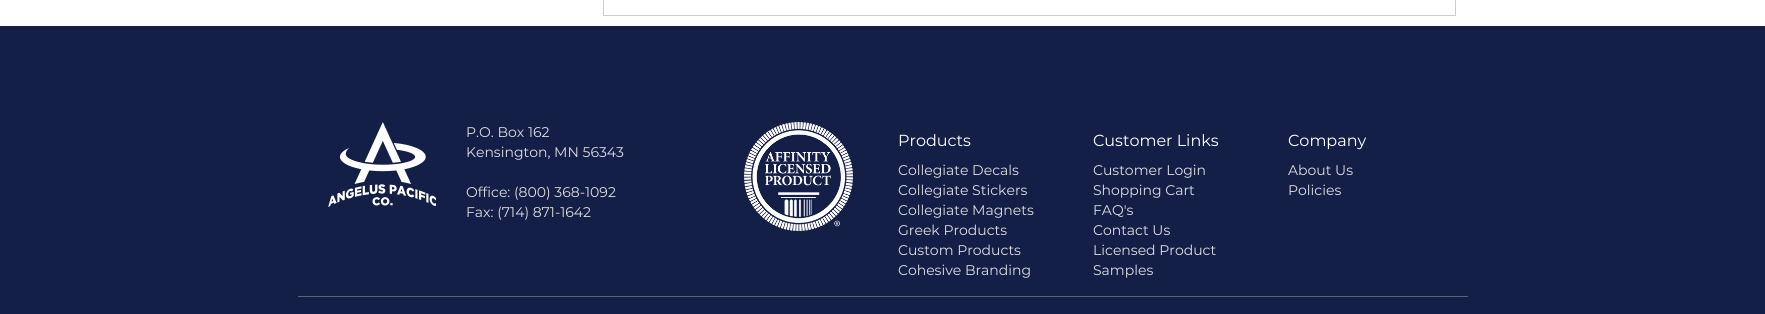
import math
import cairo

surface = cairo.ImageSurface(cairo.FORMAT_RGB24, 1765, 314)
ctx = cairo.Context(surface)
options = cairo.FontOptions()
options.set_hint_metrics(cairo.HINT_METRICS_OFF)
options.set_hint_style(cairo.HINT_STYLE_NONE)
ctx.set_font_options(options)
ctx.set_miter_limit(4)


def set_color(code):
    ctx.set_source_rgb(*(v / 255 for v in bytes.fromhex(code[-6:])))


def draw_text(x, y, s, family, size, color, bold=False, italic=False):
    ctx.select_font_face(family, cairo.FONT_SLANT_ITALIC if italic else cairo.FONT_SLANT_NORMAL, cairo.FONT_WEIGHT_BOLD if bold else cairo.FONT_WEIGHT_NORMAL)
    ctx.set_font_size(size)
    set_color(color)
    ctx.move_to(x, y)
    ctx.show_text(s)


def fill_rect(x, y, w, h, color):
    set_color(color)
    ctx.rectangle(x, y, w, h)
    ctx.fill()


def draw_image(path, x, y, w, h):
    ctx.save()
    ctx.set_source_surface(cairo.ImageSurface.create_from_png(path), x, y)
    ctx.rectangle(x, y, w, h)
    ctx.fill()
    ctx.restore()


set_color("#ffffff")
ctx.paint()
fill_rect(1455, 0, 1, 16, "#cccccc")
fill_rect(603, 15, 853, 1, "#cccccc")
fill_rect(603, 0, 1, 16, "#cccccc")
fill_rect(0, 26, 1765, 288, "#141f48")
draw_image("assets/img1.png", 328, 122, 108, 85)
draw_text(466, 137, "P.O. Box 162", "Montserrat", 14, "#dddddd")
draw_text(466, 157, "Kensington, MN 56343", "Montserrat", 14, "#dddddd")
draw_text(466, 197, "Office: (800) 368-1092", "Montserrat", 14, "#dddddd")
draw_text(466, 217, "Fax: (714) 871-1642", "Montserrat", 14, "#dddddd")
draw_image("assets/img2.png", 744, 122, 109, 109)
draw_text(898, 146, "Products", "Montserrat", 16, "#ffffff")
draw_text(898, 175, "Collegiate Decals", "Montserrat", 14, "#dddddd")
draw_text(898, 195, "Collegiate Stickers", "Montserrat", 14, "#dddddd")
draw_text(898, 215, "Collegiate Magnets", "Montserrat", 14, "#dddddd")
draw_text(898, 235, "Greek Products", "Montserrat", 14, "#dddddd")
draw_text(898, 255, "Custom Products", "Montserrat", 14, "#dddddd")
draw_text(898, 275, "Cohesive Branding", "Montserrat", 14, "#dddddd")
draw_text(1093, 146, "Customer Links", "Montserrat", 16, "#ffffff")
draw_text(1093, 175, "Customer Login", "Montserrat", 14, "#dddddd")
draw_text(1093, 195, "Shopping Cart", "Montserrat", 14, "#dddddd")
draw_text(1093, 215, "FAQ's", "Montserrat", 14, "#dddddd")
draw_text(1093, 235, "Contact Us", "Montserrat", 14, "#dddddd")
draw_text(1093, 255, "Licensed Product", "Montserrat", 14, "#dddddd")
draw_text(1093, 275, "Samples", "Montserrat", 14, "#dddddd")
draw_text(1288, 146, "Company", "Montserrat", 16, "#ffffff")
draw_text(1288, 175, "About Us", "Montserrat", 14, "#dddddd")
draw_text(1288, 195, "Policies", "Montserrat", 14, "#dddddd")
fill_rect(298, 296, 1170, 1, "#556677")
surface.write_to_png("output.png")
